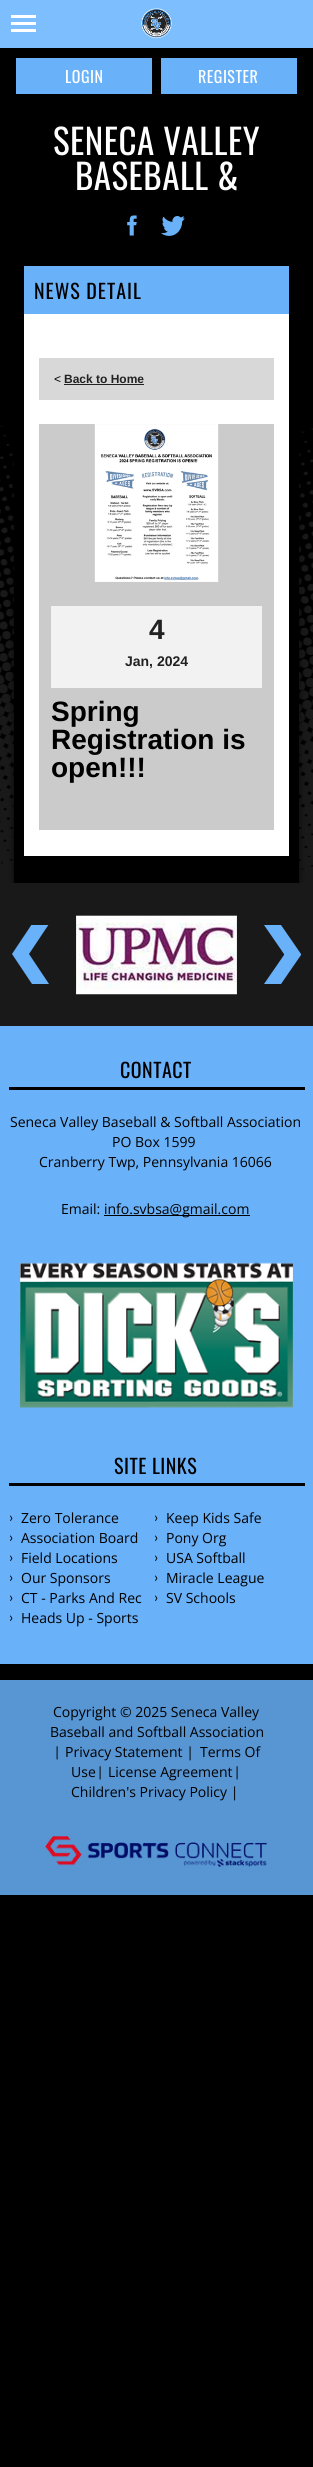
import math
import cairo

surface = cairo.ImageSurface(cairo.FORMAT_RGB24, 313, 2467)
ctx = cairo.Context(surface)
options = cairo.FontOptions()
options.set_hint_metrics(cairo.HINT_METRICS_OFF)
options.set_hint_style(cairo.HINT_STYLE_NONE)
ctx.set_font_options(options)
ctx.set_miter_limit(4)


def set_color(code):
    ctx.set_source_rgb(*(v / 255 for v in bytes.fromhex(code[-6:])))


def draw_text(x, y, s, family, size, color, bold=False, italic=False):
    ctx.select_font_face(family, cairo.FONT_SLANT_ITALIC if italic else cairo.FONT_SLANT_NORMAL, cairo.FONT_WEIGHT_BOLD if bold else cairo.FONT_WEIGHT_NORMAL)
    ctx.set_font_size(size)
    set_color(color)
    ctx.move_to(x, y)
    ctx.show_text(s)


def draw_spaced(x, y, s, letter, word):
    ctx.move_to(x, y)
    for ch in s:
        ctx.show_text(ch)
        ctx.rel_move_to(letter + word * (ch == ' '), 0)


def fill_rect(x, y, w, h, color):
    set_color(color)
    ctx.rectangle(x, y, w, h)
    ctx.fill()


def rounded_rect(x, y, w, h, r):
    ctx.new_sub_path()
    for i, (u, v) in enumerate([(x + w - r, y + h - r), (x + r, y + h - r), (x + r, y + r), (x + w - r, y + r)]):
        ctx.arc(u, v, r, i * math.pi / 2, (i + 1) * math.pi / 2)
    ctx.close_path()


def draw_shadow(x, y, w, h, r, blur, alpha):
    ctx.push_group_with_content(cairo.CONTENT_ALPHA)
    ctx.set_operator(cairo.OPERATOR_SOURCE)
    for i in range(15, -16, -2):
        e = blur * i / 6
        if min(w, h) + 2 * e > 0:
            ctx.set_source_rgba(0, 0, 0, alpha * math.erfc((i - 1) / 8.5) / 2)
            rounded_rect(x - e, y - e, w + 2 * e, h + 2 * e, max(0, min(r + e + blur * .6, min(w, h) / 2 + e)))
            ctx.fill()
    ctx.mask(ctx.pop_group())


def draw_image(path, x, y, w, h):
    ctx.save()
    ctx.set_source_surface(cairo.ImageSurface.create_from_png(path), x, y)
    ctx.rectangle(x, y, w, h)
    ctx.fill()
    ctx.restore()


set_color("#000000")
ctx.paint()
fill_rect(0, 0, 313, 48, "#7dbeff")
draw_image("assets/img1.png", 11, 15, 25, 17)
draw_image("assets/img2.png", 141, 8, 31, 31)
fill_rect(16, 58, 136, 36, "#69b1f9")
ctx.select_font_face("Oswald")
ctx.set_font_size(16)
set_color("#ffffff")
draw_spaced(65, 83, "LOGIN", 0.5, 0)
fill_rect(161, 58, 136, 36, "#69b1f9")
set_color("#ffffff")
draw_spaced(198, 83, "REGISTER", 0.5, 0)
ctx.set_font_size(35)
draw_spaced(53, 155, "SENECA VALLEY", 0.5, 0)
draw_spaced(75, 190, "BASEBALL &", 0.5, 0)
draw_image("assets/img3.png", 127, 215, 10, 21)
draw_image("assets/img4.png", 161, 216, 24, 20)
draw_image("assets/img5.png", 0, 425, 313, 458)
set_color("#000000")
draw_shadow(14, 259, 285, 628, 0, 3.5, 0.61)
fill_rect(14, 425, 285, 458, "#000000")
fill_rect(24, 266, 265, 48, "#69b1f9")
ctx.set_font_size(20)
set_color("#000000")
draw_spaced(34, 299, "NEWS DETAIL", 1, 0)
fill_rect(24, 314, 265, 542, "#ffffff")
fill_rect(39, 358, 235, 42, "#d8d8d8")
draw_text(54, 383, "<", "Liberation Sans", 12, "#000000")
draw_text(64, 383, "Back to Home", "Liberation Sans", 12, "#222222", bold=True)
fill_rect(64, 384, 80, 1, "#222222")
fill_rect(39, 424, 235, 406, "#cbcbcb")
draw_image("assets/img6.png", 94, 424, 125, 158)
fill_rect(51, 606, 211, 82, "#f2f2f2")
draw_text(149, 639, "4", "Liberation Sans", 28, "#222222", bold=True)
draw_text(125, 666, "Jan, 2024", "Liberation Sans", 14, "#222222", bold=True)
draw_text(51, 721, "Spring", "Liberation Sans", 28, "#000000", bold=True)
draw_text(51, 749, "Registration is", "Liberation Sans", 28, "#000000", bold=True)
draw_text(51, 777, "open!!!", "Liberation Sans", 28, "#000000", bold=True)
fill_rect(0, 883, 313, 143, "#191919")
ctx.save()
ctx.rectangle(12, 925, 37, 59)
ctx.clip()
set_color("#69b1f9")
ctx.new_path()
ctx.move_to(49, 984)
ctx.line_to(32, 984)
ctx.line_to(12, 954)
ctx.line_to(32, 924)
ctx.line_to(49, 924)
ctx.line_to(29, 954)
ctx.close_path()
ctx.fill()
ctx.restore()
draw_image("assets/img7.png", 76, 915, 161, 80)
set_color("#69b1f9")
ctx.new_path()
ctx.move_to(264, 925)
ctx.line_to(281, 925)
ctx.line_to(301, 954)
ctx.line_to(301, 955)
ctx.line_to(281, 984)
ctx.line_to(264, 984)
ctx.line_to(284, 955)
ctx.line_to(284, 954)
ctx.close_path()
ctx.fill()
fill_rect(0, 1026, 313, 638, "#69b1f9")
ctx.select_font_face("Oswald")
ctx.set_font_size(20)
set_color("#000000")
draw_spaced(120, 1078, "CONTACT", 0.5, 0)
fill_rect(9, 1087, 296, 3, "#000000")
draw_text(10, 1127, "Seneca Valley Baseball & Softball Association", "Open Sans", 14, "#000000")
draw_text(112, 1147, "PO Box 1599", "Open Sans", 14, "#000000")
draw_text(39, 1167, "Cranberry Twp, Pennsylvania 16066", "Open Sans", 14, "#000000")
draw_text(61, 1214, "Email:", "Open Sans", 14, "#000000")
fill_rect(104, 1215, 146, 1, "#000000")
draw_text(104, 1214, "info.svbsa@gmail.com", "Open Sans", 14, "#000000")
draw_image("assets/img8.png", 20, 1262, 273, 146)
ctx.select_font_face("Oswald")
ctx.set_font_size(20)
draw_spaced(114, 1474, "SITE LINKS", 0.5, 0)
fill_rect(9, 1483, 296, 3, "#000000")
draw_text(9, 1522, "›", "Lato", 14, "#000000")
draw_text(21, 1523, "Zero Tolerance", "Open Sans", 14, "#000000")
draw_text(9, 1542, "›", "Lato", 14, "#000000")
draw_text(21, 1543, "Association Board", "Open Sans", 14, "#000000")
draw_text(9, 1562, "›", "Lato", 14, "#000000")
draw_text(21, 1563, "Field Locations", "Open Sans", 14, "#000000")
draw_text(9, 1582, "›", "Lato", 14, "#000000")
draw_text(21, 1583, "Our Sponsors", "Open Sans", 14, "#000000")
draw_text(9, 1602, "›", "Lato", 14, "#000000")
draw_text(21, 1603, "CT - Parks And Rec", "Open Sans", 14, "#000000")
draw_text(9, 1622, "›", "Lato", 14, "#000000")
draw_text(21, 1623, "Heads Up - Sports", "Open Sans", 14, "#000000")
draw_text(154, 1522, "›", "Lato", 14, "#000000")
draw_text(166, 1523, "Keep Kids Safe", "Open Sans", 14, "#000000")
draw_text(154, 1542, "›", "Lato", 14, "#000000")
draw_text(166, 1543, "Pony Org", "Open Sans", 14, "#000000")
draw_text(154, 1562, "›", "Lato", 14, "#000000")
draw_text(166, 1563, "USA Softball", "Open Sans", 14, "#000000")
draw_text(154, 1582, "›", "Lato", 14, "#000000")
draw_text(166, 1583, "Miracle League", "Open Sans", 14, "#000000")
draw_text(154, 1602, "›", "Lato", 14, "#000000")
draw_text(166, 1603, "SV Schools", "Open Sans", 14, "#000000")
fill_rect(0, 1680, 313, 215, "#5795d3")
draw_text(53, 1717, "Copyright © 2025 Seneca Valley", "Open Sans", 14, "#000000")
draw_text(50, 1737, "Baseball and Softball Association", "Open Sans", 14, "#000000")
draw_text(55, 1757, "|", "Lato", 14, "#000000")
draw_text(65, 1757, "Privacy Statement |", "Open Sans", 14, "#000000")
draw_text(200, 1757, "Terms Of", "Open Sans", 14, "#000000")
draw_text(71, 1777, "Use", "Open Sans", 14, "#000000")
draw_text(98, 1777, "|", "Lato", 14, "#000000")
draw_text(108, 1777, "License Agreement", "Open Sans", 14, "#000000")
draw_text(235, 1777, "|", "Lato", 14, "#000000")
draw_text(71, 1797, "Children's Privacy Policy |", "Open Sans", 14, "#000000")
draw_image("assets/img9.png", 45, 1836, 223, 31)
surface.write_to_png("output.png")
